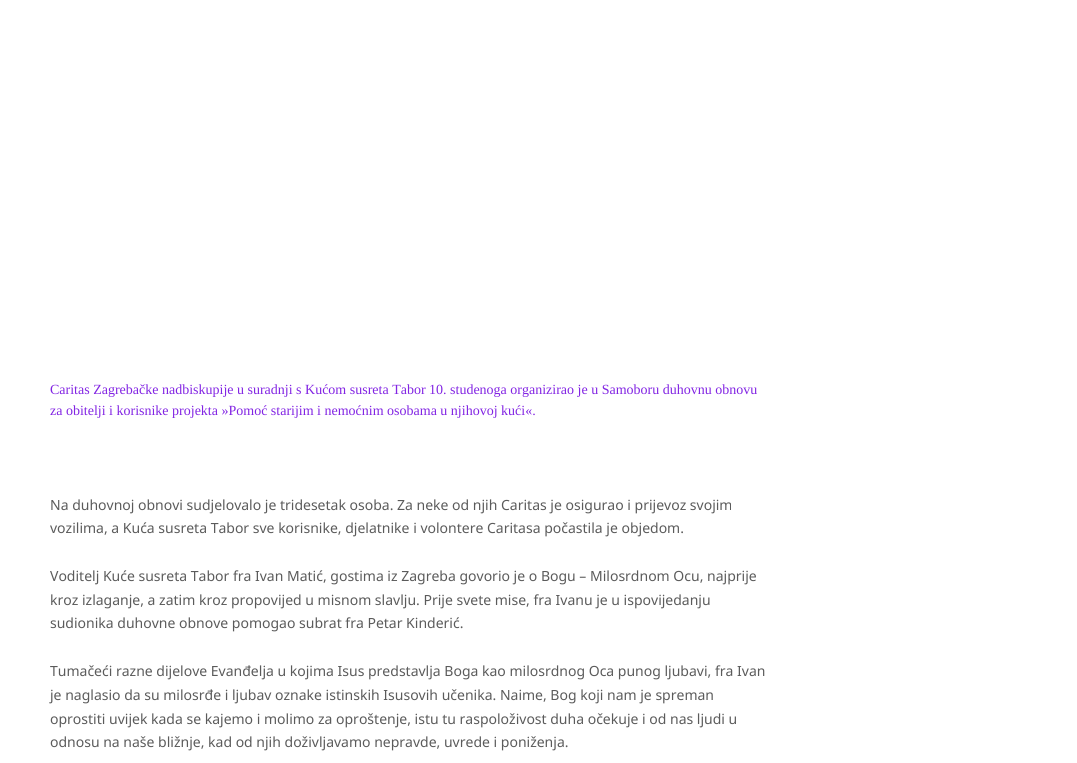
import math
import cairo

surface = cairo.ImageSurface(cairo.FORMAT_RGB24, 1077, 763)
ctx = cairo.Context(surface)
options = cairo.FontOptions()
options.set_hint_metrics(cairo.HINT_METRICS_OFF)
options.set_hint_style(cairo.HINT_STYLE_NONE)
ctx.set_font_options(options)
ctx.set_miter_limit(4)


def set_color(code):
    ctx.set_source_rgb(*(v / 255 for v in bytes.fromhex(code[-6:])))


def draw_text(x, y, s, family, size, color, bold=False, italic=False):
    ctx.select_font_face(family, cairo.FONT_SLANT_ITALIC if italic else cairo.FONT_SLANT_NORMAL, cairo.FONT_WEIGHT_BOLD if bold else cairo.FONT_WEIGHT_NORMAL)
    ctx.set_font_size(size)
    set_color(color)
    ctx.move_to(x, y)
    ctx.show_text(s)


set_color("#ffffff")
ctx.paint()
draw_text(50, 394, "Caritas Zagrebačke nadbiskupije u suradnji s Kućom susreta Tabor 10. studenoga organizirao je u Samoboru duhovnu obnovu", "Liberation Serif", 14, "#8224e3")
draw_text(50, 415, "za obitelji i korisnike projekta »Pomoć starijim i nemoćnim osobama u njihovoj kući«.", "Liberation Serif", 14, "#8224e3")
draw_text(50, 510, "Na duhovnoj obnovi sudjelovalo je tridesetak osoba. Za neke od njih Caritas je osigurao i prijevoz svojim", "Noto Sans", 14, "#5b5b5b")
draw_text(50, 533, "vozilima, a Kuća susreta Tabor sve korisnike, djelatnike i volontere Caritasa počastila je objedom.", "Noto Sans", 14, "#5b5b5b")
draw_text(50, 581, "Voditelj Kuće susreta Tabor fra Ivan Matić, gostima iz Zagreba govorio je o Bogu – Milosrdnom Ocu, najprije", "Noto Sans", 14, "#5b5b5b")
draw_text(50, 605, "kroz izlaganje, a zatim kroz propovijed u misnom slavlju. Prije svete mise, fra Ivanu je u ispovijedanju", "Noto Sans", 14, "#5b5b5b")
draw_text(50, 628, "sudionika duhovne obnove pomogao subrat fra Petar Kinderić.", "Noto Sans", 14, "#5b5b5b")
draw_text(50, 676, "Tumačeći razne dijelove Evanđelja u kojima Isus predstavlja Boga kao milosrdnog Oca punog ljubavi, fra Ivan", "Noto Sans", 14, "#5b5b5b")
draw_text(50, 700, "je naglasio da su milosrđe i ljubav oznake istinskih Isusovih učenika. Naime, Bog koji nam je spreman", "Noto Sans", 14, "#5b5b5b")
draw_text(50, 724, "oprostiti uvijek kada se kajemo i molimo za oproštenje, istu tu raspoloživost duha očekuje i od nas ljudi u", "Noto Sans", 14, "#5b5b5b")
draw_text(50, 747, "odnosu na naše bližnje, kad od njih doživljavamo nepravde, uvrede i poniženja.", "Noto Sans", 14, "#5b5b5b")
surface.write_to_png("output.png")
